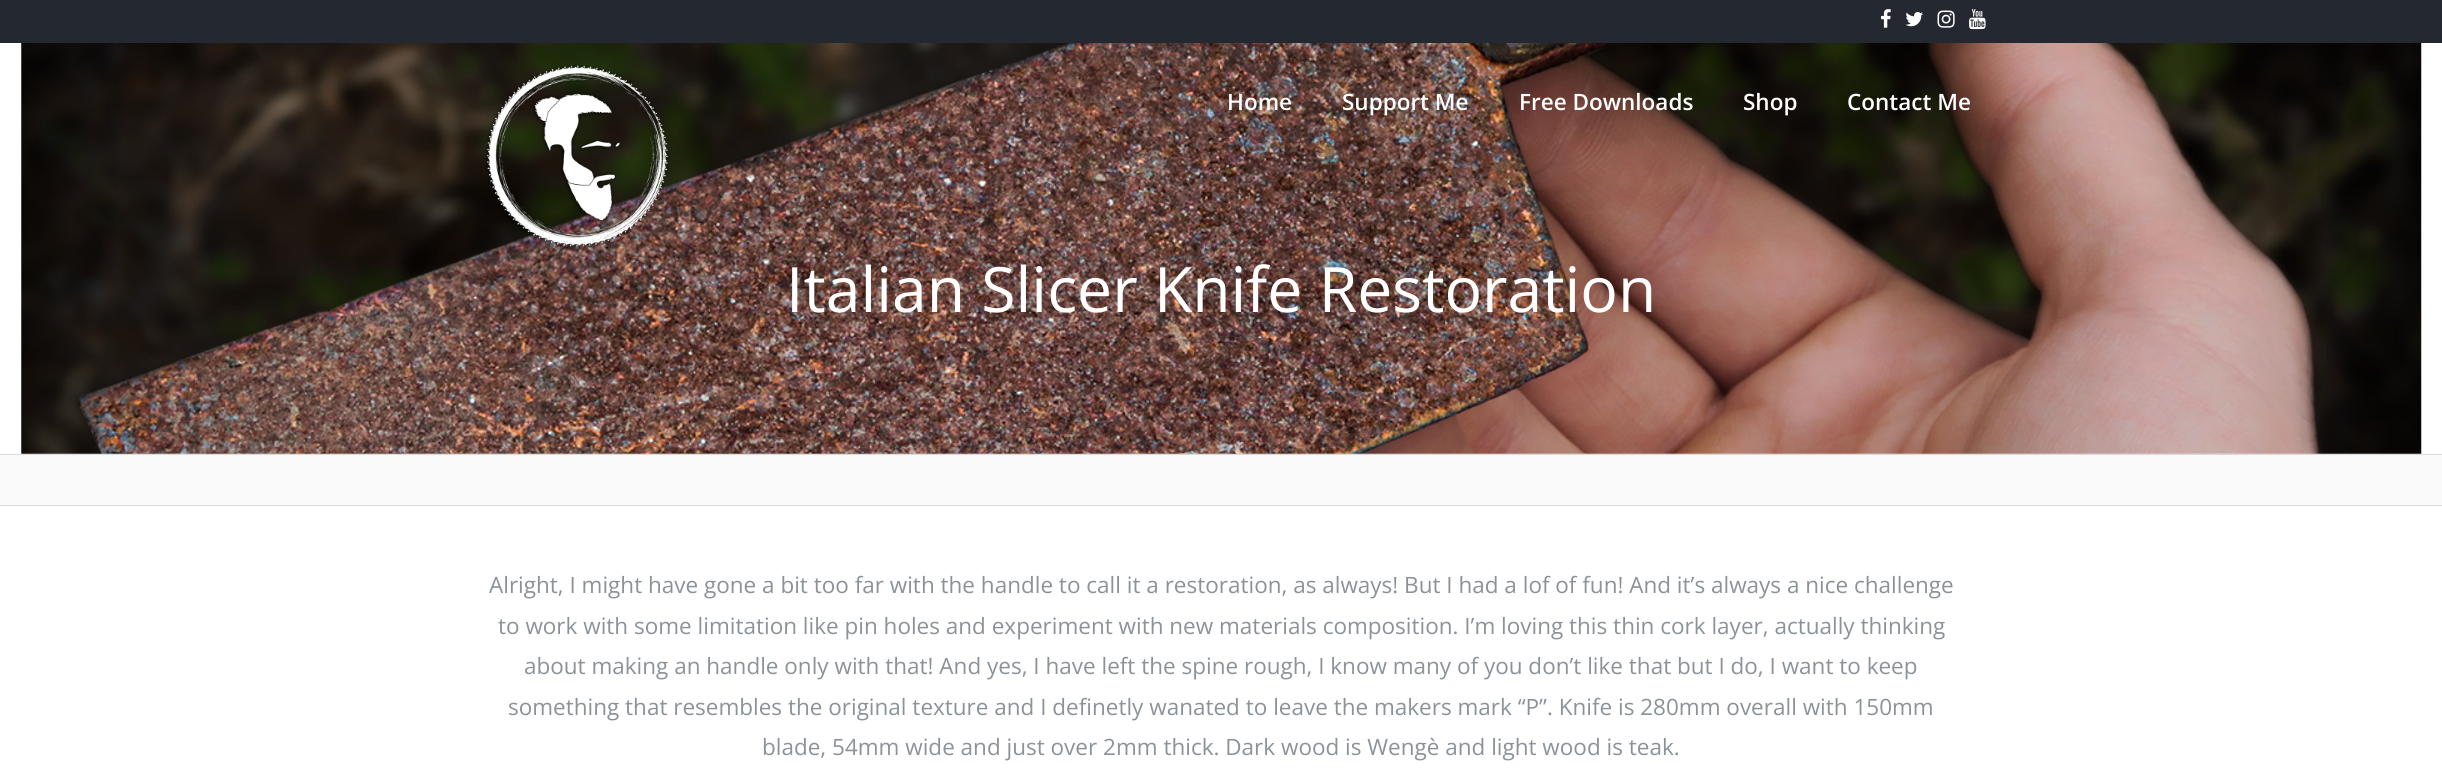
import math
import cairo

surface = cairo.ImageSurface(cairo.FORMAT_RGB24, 2442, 769)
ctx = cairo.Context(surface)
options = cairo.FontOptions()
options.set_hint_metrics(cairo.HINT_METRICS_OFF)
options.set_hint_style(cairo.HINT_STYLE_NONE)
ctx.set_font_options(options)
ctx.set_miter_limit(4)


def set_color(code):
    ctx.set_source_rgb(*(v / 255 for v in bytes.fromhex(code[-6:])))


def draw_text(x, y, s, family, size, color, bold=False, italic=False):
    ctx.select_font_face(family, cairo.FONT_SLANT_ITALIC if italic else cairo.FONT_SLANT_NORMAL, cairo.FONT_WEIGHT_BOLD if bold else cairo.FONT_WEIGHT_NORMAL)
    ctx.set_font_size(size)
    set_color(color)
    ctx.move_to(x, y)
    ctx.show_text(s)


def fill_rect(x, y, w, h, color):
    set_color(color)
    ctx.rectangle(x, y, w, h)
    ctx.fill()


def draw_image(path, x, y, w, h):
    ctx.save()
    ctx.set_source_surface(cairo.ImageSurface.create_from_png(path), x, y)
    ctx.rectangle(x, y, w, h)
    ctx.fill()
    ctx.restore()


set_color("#ffffff")
ctx.paint()
fill_rect(0, 0, 2442, 43, "#242830")
draw_image("assets/img1.png", 1881, 9, 10, 19)
draw_image("assets/img2.png", 1905, 12, 18, 15)
draw_image("assets/img3.png", 1937, 10, 18, 18)
draw_image("assets/img4.png", 1969, 9, 17, 21)
draw_image("assets/img6.png", 21, 43, 2401, 411)
draw_image("assets/img5.png", 486, 65, 183, 184)
draw_text(1227, 110, "Home", "Open Sans SemiBold", 22.5, "#ffffff")
draw_text(1342, 110, "Support Me", "Open Sans SemiBold", 22.5, "#ffffff")
draw_text(1519, 110, "Free Downloads", "Open Sans SemiBold", 22.5, "#ffffff")
draw_text(1743, 110, "Shop", "Open Sans SemiBold", 22.5, "#ffffff")
draw_text(1847, 110, "Contact Me", "Open Sans SemiBold", 22.5, "#ffffff")
draw_text(786, 312, "Italian Slicer Knife Restoration", "Open Sans", 62.5, "#ffffff")
fill_rect(0, 455, 2442, 50, "#fafafa")
fill_rect(0, 454, 2442, 1, "#dadada")
fill_rect(0, 505, 2442, 1, "#dadada")
draw_text(489, 593, "Alright, I might have gone a bit too far with the handle to call it a restoration, as always! But I had a lof of fun! And it’s always a nice challenge", "Open Sans", 22.5, "#8c9398")
draw_text(498, 634, "to work with some limitation like pin holes and experiment with new materials composition. I’m loving this thin cork layer, actually thinking", "Open Sans", 22.5, "#8c9398")
draw_text(524, 674, "about making an handle only with that! And yes, I have left the spine rough, I know many of you don’t like that but I do, I want to keep", "Open Sans", 22.5, "#8c9398")
draw_text(508, 715, "something that resembles the original texture and I definetly wanated to leave the makers mark “P”. Knife is 280mm overall with 150mm", "Open Sans", 22.5, "#8c9398")
draw_text(762, 755, "blade, 54mm wide and just over 2mm thick. Dark wood is Wengè and light wood is teak.", "Open Sans", 22.5, "#8c9398")
surface.write_to_png("output.png")
